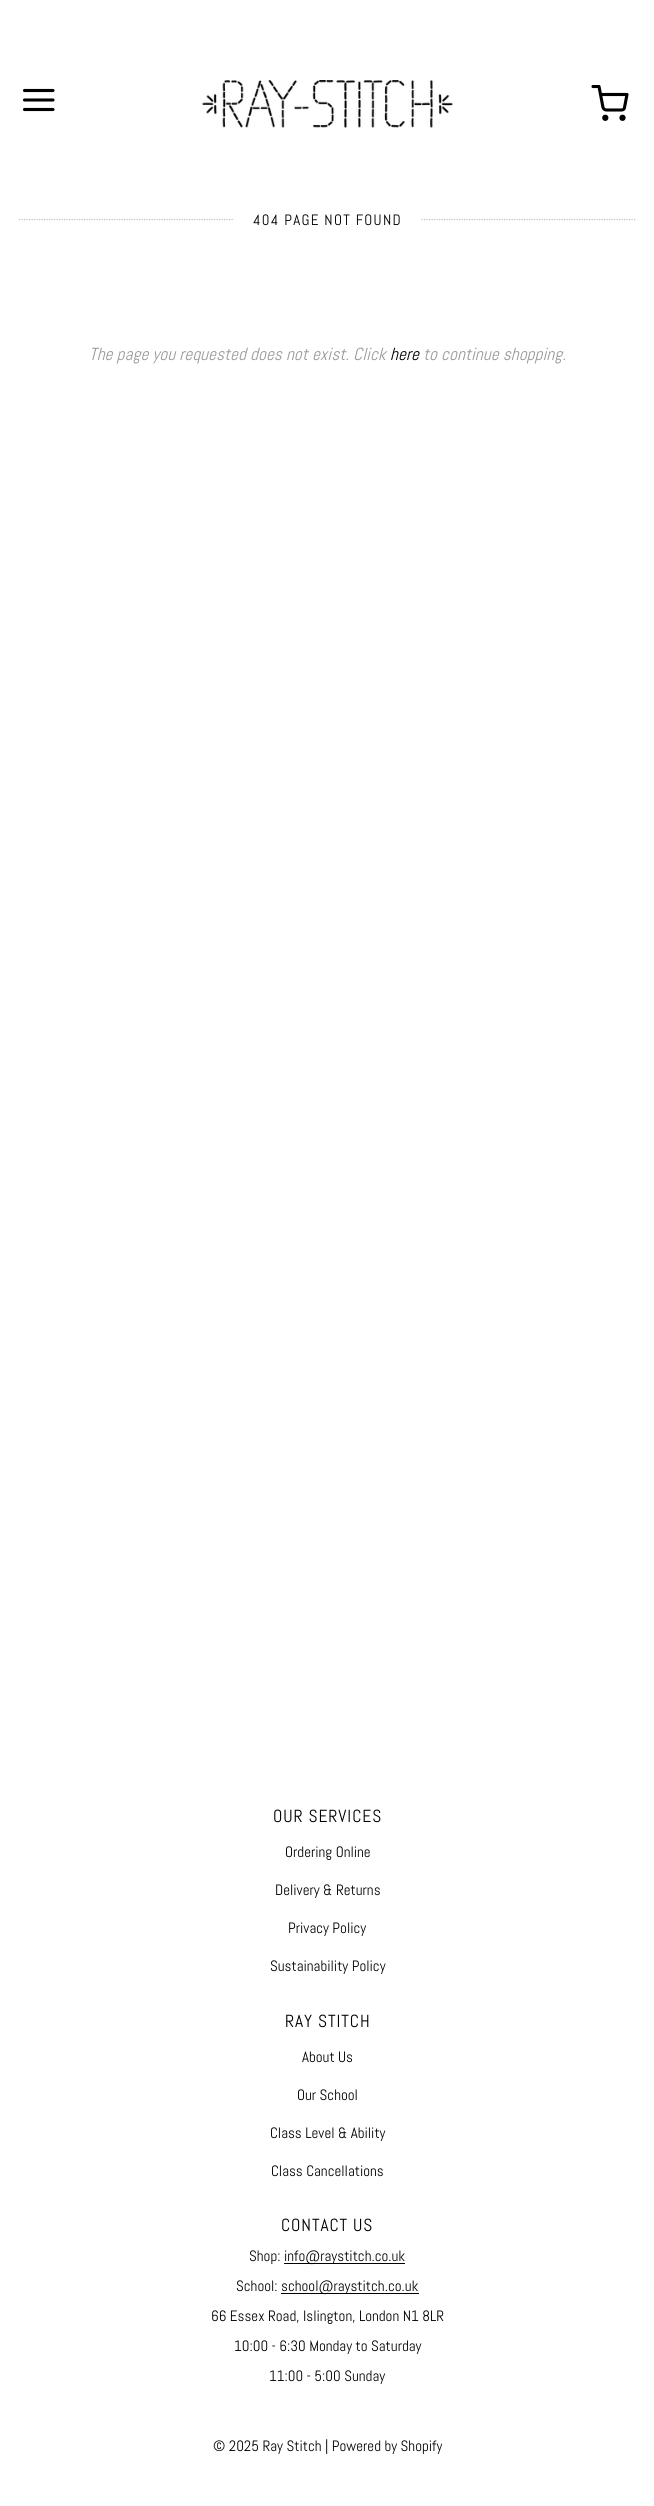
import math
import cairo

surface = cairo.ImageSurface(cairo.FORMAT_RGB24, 654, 2506)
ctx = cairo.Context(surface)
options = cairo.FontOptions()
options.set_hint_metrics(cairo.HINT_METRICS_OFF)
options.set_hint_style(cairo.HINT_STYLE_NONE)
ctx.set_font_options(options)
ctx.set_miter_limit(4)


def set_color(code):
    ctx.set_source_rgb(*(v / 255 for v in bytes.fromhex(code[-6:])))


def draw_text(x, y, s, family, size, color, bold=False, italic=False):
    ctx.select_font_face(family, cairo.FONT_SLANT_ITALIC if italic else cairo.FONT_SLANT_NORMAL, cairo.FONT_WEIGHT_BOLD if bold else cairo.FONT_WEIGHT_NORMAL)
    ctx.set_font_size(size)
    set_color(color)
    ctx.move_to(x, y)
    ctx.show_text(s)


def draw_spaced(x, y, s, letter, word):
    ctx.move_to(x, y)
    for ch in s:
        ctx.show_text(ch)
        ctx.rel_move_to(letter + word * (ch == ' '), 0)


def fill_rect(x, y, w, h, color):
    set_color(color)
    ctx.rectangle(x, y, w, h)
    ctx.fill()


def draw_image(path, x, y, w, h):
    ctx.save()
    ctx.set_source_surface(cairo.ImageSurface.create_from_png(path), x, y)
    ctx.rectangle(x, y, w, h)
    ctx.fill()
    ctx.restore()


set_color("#ffffff")
ctx.paint()
ctx.new_path()
ctx.move_to(24.5, 100)
ctx.line_to(53, 100)
ctx.move_to(24.5, 90.5)
ctx.line_to(53, 90.5)
ctx.move_to(24.5, 109.5)
ctx.line_to(53, 109.5)
set_color("#000000")
ctx.set_line_width(3.1)
ctx.set_line_cap(cairo.LINE_CAP_ROUND)
ctx.set_line_join(cairo.LINE_JOIN_ROUND)
ctx.stroke()
draw_image("assets/img1.png", 202, 80, 251, 48)
ctx.arc(605.3, 117.8, 1.6, 0, 2 * math.pi)
ctx.set_line_cap(cairo.LINE_CAP_BUTT)
ctx.set_line_join(cairo.LINE_JOIN_MITER)
ctx.stroke()
ctx.arc(622.5, 117.8, 1.6, 0, 2 * math.pi)
ctx.stroke()
ctx.save()
ctx.rectangle(591, 85, 38, 38)
ctx.clip()
ctx.new_path()
ctx.move_to(593, 86.5)
ctx.line_to(599, 86.5)
ctx.line_to(603, 107.5)
ctx.curve_to(603.5, 109, 605, 110, 606.5, 110)
ctx.line_to(621.5, 110)
ctx.curve_to(623, 110, 624.5, 109, 624.5, 107.5)
ctx.line_to(627, 94.5)
ctx.line_to(600.5, 94.5)
ctx.set_line_cap(cairo.LINE_CAP_ROUND)
ctx.set_line_join(cairo.LINE_JOIN_ROUND)
ctx.stroke()
ctx.restore()
ctx.new_path()
ctx.move_to(19, 219.5)
ctx.line_to(636, 219.5)
set_color("#bfbfbf")
ctx.set_line_width(1.2)
ctx.set_dash([1.25, 1.25])
ctx.stroke()
fill_rect(234, 218, 187, 3, "#ffffff")
ctx.select_font_face("Abel")
ctx.set_font_size(15)
set_color("#000000")
draw_spaced(253, 225, "404 PAGE NOT FOUND", 1.25, 0)
draw_text(89, 360, "The page you requested does not exist. Click", "Abel", 17.5, "#999999", italic=True)
draw_text(390, 360, "here", "Abel", 17.5, "#000000", italic=True)
draw_text(423, 360, "to continue shopping.", "Abel", 17.5, "#999999", italic=True)
ctx.select_font_face("Abel")
set_color("#000000")
draw_spaced(273, 1822, "OUR SERVICES", 0.9, 0)
draw_text(285, 1857, "Ordering Online", "Abel", 15, "#000000")
draw_text(275, 1895, "Delivery & Returns", "Abel", 15, "#000000")
draw_text(288, 1933, "Privacy Policy", "Abel", 15, "#000000")
draw_text(270, 1971, "Sustainability Policy", "Abel", 15, "#000000")
ctx.set_font_size(17.5)
draw_spaced(285, 2027, "RAY STITCH", 0.9, 0)
draw_text(302, 2062, "About Us", "Abel", 15, "#000000")
draw_text(297, 2100, "Our School", "Abel", 15, "#000000")
draw_text(270, 2138, "Class Level & Ability", "Abel", 15, "#000000")
draw_text(271, 2176, "Class Cancellations", "Abel", 15, "#000000")
ctx.set_font_size(17.5)
draw_spaced(281, 2231, "CONTACT US", 0.9, 0)
draw_text(249, 2261, "Shop:", "Abel", 15, "#000000")
fill_rect(284, 2263, 121, 1, "#000000")
draw_text(284, 2261, "info@raystitch.co.uk", "Abel", 15, "#000000")
draw_text(236, 2291, "School:", "Abel", 15, "#000000")
fill_rect(281, 2293, 138, 1, "#000000")
draw_text(281, 2291, "school@raystitch.co.uk", "Abel", 15, "#000000")
draw_text(211, 2321, "66 Essex Road, Islington, London N1 8LR", "Abel", 15, "#000000")
draw_text(234, 2351, "10:00 - 6:30 Monday to Saturday", "Abel", 15, "#000000")
draw_text(269, 2381, "11:00 - 5:00 Sunday", "Abel", 15, "#000000")
draw_text(213, 2451, "© 2025 Ray Stitch | Powered by Shopify", "Abel", 15, "#000000")
surface.write_to_png("output.png")
